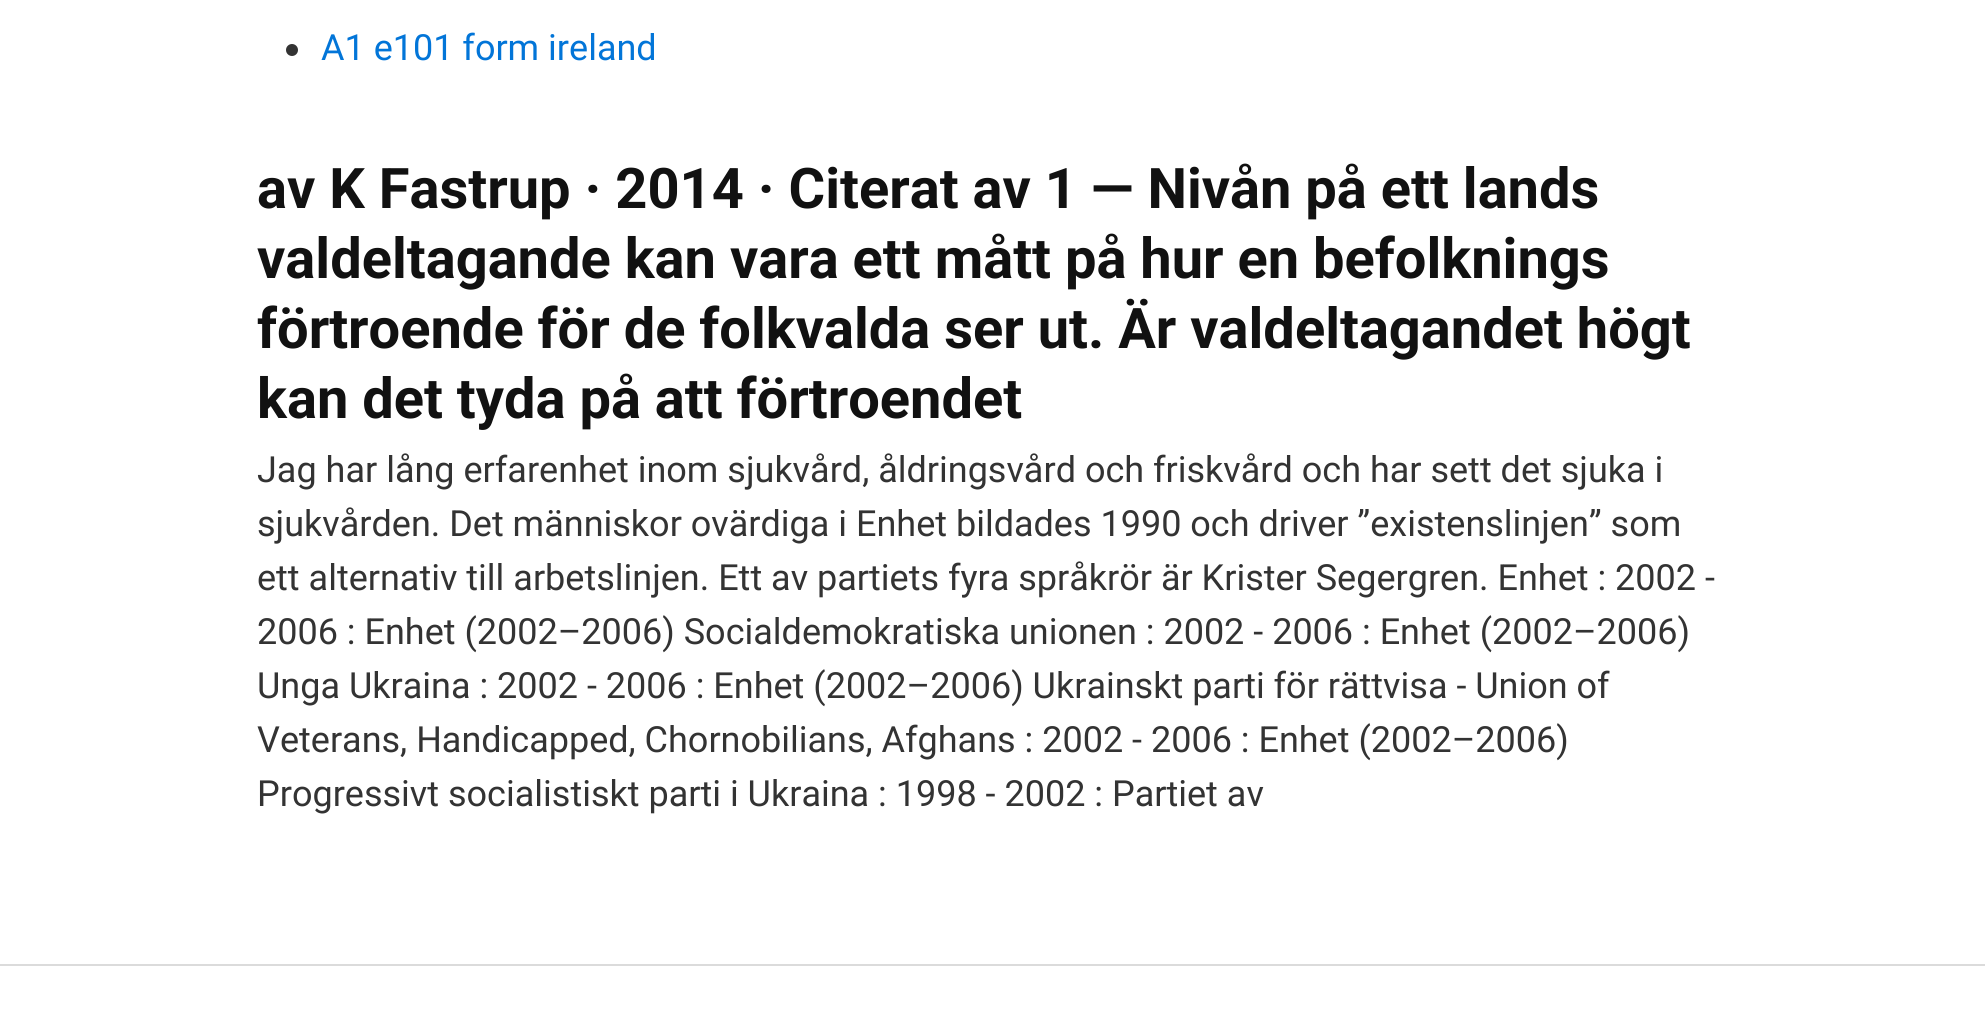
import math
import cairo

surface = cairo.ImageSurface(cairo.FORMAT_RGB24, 1985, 1030)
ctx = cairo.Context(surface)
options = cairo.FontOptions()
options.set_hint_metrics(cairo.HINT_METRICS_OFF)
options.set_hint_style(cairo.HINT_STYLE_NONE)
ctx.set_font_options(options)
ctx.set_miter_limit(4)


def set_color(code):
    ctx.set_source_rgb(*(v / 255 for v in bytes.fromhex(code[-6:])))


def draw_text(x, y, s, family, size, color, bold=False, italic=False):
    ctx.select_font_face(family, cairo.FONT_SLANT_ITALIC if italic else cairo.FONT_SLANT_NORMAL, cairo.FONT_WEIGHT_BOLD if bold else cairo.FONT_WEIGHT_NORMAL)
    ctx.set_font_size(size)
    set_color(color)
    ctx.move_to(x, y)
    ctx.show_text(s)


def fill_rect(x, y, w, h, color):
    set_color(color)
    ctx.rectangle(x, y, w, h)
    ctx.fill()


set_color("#ffffff")
ctx.paint()
set_color("#333333")
ctx.arc(292, 50, 6, 0, 2 * math.pi)
ctx.fill()
draw_text(321, 60, "A1 e101 form ireland", "Roboto", 36, "#0275d8")
draw_text(257, 208, "av K Fastrup · 2014 · Citerat av 1 — Nivån på ett lands", "Roboto", 56, "#111111", bold=True)
draw_text(257, 278, "valdeltagande kan vara ett mått på hur en befolknings", "Roboto", 56, "#111111", bold=True)
draw_text(257, 348, "förtroende för de folkvalda ser ut. Är valdeltagandet högt", "Roboto", 56, "#111111", bold=True)
draw_text(257, 418, "kan det tyda på att förtroendet", "Roboto", 56, "#111111", bold=True)
draw_text(257, 482, "Jag har lång erfarenhet inom sjukvård, åldringsvård och friskvård och har sett det sjuka i", "Roboto", 36, "#333333")
draw_text(257, 536, "sjukvården. Det människor ovärdiga i Enhet bildades 1990 och driver ”existenslinjen” som", "Roboto", 36, "#333333")
draw_text(257, 590, "ett alternativ till arbetslinjen. Ett av partiets fyra språkrör är Krister Segergren. Enhet : 2002 -", "Roboto", 36, "#333333")
draw_text(257, 644, "2006 : Enhet (2002–2006) Socialdemokratiska unionen : 2002 - 2006 : Enhet (2002–2006)", "Roboto", 36, "#333333")
draw_text(257, 698, "Unga Ukraina : 2002 - 2006 : Enhet (2002–2006) Ukrainskt parti för rättvisa - Union of", "Roboto", 36, "#333333")
draw_text(257, 752, "Veterans, Handicapped, Chornobilians, Afghans : 2002 - 2006 : Enhet (2002–2006)", "Roboto", 36, "#333333")
draw_text(257, 806, "Progressivt socialistiskt parti i Ukraina : 1998 - 2002 : Partiet av", "Roboto", 36, "#333333")
fill_rect(0, 964, 1985, 2, "#dbdbdb")
surface.write_to_png("output.png")
